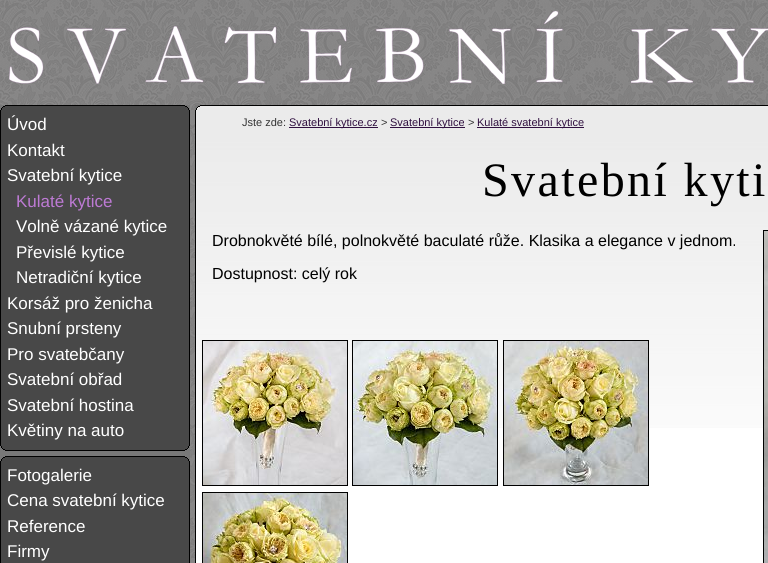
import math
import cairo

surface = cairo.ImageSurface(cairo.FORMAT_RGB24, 768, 563)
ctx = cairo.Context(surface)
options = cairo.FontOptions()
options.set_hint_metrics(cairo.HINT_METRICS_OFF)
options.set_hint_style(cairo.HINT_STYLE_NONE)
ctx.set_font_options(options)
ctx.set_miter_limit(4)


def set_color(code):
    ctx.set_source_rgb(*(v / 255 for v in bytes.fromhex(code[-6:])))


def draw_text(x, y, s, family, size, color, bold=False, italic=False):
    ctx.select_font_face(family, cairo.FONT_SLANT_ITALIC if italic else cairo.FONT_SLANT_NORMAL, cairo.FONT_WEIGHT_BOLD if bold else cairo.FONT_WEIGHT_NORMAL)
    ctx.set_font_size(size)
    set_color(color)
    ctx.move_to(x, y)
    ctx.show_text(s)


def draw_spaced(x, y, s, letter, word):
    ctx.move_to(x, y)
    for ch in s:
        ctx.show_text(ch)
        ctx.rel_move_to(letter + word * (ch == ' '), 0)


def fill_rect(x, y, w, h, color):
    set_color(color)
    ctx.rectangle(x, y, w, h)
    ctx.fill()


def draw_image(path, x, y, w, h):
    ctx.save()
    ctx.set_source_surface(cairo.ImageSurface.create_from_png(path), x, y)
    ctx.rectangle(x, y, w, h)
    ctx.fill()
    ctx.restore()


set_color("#ffffff")
ctx.paint()
draw_image("assets/img1.png", 0, 0, 768, 563)
draw_image("assets/img2.png", 9, 11, 759, 73)
fill_rect(1, 106, 188, 457, "#484848")
draw_image("assets/img3.png", 0, 105, 7, 7)
fill_rect(7, 105, 176, 1, "#000000")
draw_image("assets/img4.png", 183, 105, 7, 7)
fill_rect(0, 112, 1, 332, "#000000")
draw_text(7, 130, "Úvod", "Liberation Sans", 17, "#ffffff")
draw_text(7, 156, "Kontakt", "Liberation Sans", 17, "#ffffff")
draw_text(7, 181, "Svatební kytice", "Liberation Sans", 17, "#ffffff")
draw_text(16, 207, "Kulaté kytice", "Liberation Sans", 17, "#bd7ad4")
draw_text(16, 232, "Volně vázané kytice", "Liberation Sans", 17, "#ffffff")
draw_text(16, 258, "Převislé kytice", "Liberation Sans", 17, "#ffffff")
draw_text(16, 283, "Netradiční kytice", "Liberation Sans", 17, "#ffffff")
draw_text(7, 309, "Korsáž pro ženicha", "Liberation Sans", 17, "#ffffff")
draw_text(7, 334, "Snubní prsteny", "Liberation Sans", 17, "#ffffff")
draw_text(7, 360, "Pro svatebčany", "Liberation Sans", 17, "#ffffff")
draw_text(7, 385, "Svatební obřad", "Liberation Sans", 17, "#ffffff")
draw_text(7, 411, "Svatební hostina", "Liberation Sans", 17, "#ffffff")
draw_text(7, 436, "Květiny na auto", "Liberation Sans", 17, "#ffffff")
fill_rect(189, 112, 1, 332, "#000000")
draw_image("assets/img5.png", 0, 444, 7, 7)
fill_rect(7, 450, 176, 1, "#000000")
draw_image("assets/img6.png", 183, 444, 7, 7)
fill_rect(0, 451, 190, 5, "#787878")
draw_image("assets/img3.png", 0, 456, 7, 7)
fill_rect(7, 456, 176, 1, "#000000")
draw_image("assets/img4.png", 183, 456, 7, 7)
fill_rect(0, 463, 1, 100, "#000000")
draw_text(7, 481, "Fotogalerie", "Liberation Sans", 17, "#ffffff")
draw_text(7, 506, "Cena svatební kytice", "Liberation Sans", 17, "#ffffff")
draw_text(7, 532, "Reference", "Liberation Sans", 17, "#ffffff")
draw_text(7, 557, "Firmy", "Liberation Sans", 17, "#ffffff")
fill_rect(189, 463, 1, 100, "#000000")
fill_rect(196, 428, 567, 135, "#ffffff")
draw_image("assets/img7.png", 196, 106, 572, 322)
fill_rect(195, 105, 1, 458, "#000000")
draw_image("assets/img8.png", 195, 105, 7, 5)
fill_rect(202, 105, 566, 1, "#000000")
draw_text(242, 126, "Jste zde:", "Liberation Sans", 11, "#333333")
fill_rect(289, 127, 89, 1, "#301040")
draw_text(289, 126, "Svatební kytice.cz", "Liberation Sans", 11, "#301040")
draw_text(381, 126, ">", "Liberation Sans", 11, "#333333")
fill_rect(390, 127, 75, 1, "#301040")
draw_text(390, 126, "Svatební kytice", "Liberation Sans", 11, "#301040")
draw_text(468, 126, ">", "Liberation Sans", 11, "#333333")
fill_rect(477, 127, 107, 1, "#301040")
draw_text(477, 126, "Kulaté svatební kytice", "Liberation Sans", 11, "#301040")
draw_text(212, 246, "Drobnokvěté bílé, polnokvěté baculaté růže. Klasika a elegance v jednom.", "Liberation Sans", 16, "#000000")
ctx.rectangle(763.5, 230.5, 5, 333)
ctx.set_line_width(1)
ctx.stroke()
draw_image("assets/img9.png", 764, 231, 4, 332)
draw_text(212, 279, "Dostupnost: celý rok", "Liberation Sans", 16, "#000000")
ctx.rectangle(202.5, 340.5, 145, 145)
ctx.stroke()
ctx.rectangle(352.5, 340.5, 145, 145)
ctx.stroke()
ctx.rectangle(503.5, 340.5, 145, 145)
ctx.stroke()
draw_image("assets/img10.png", 203, 341, 144, 144)
draw_image("assets/img11.png", 353, 341, 144, 144)
draw_image("assets/img12.png", 504, 341, 144, 144)
ctx.rectangle(202.5, 492.5, 145, 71)
ctx.stroke()
draw_image("assets/img13.png", 203, 493, 144, 70)
ctx.select_font_face("Liberation Serif")
ctx.set_font_size(48)
draw_spaced(482, 196, "Svatební kyti", 2.4, 0)
surface.write_to_png("output.png")
